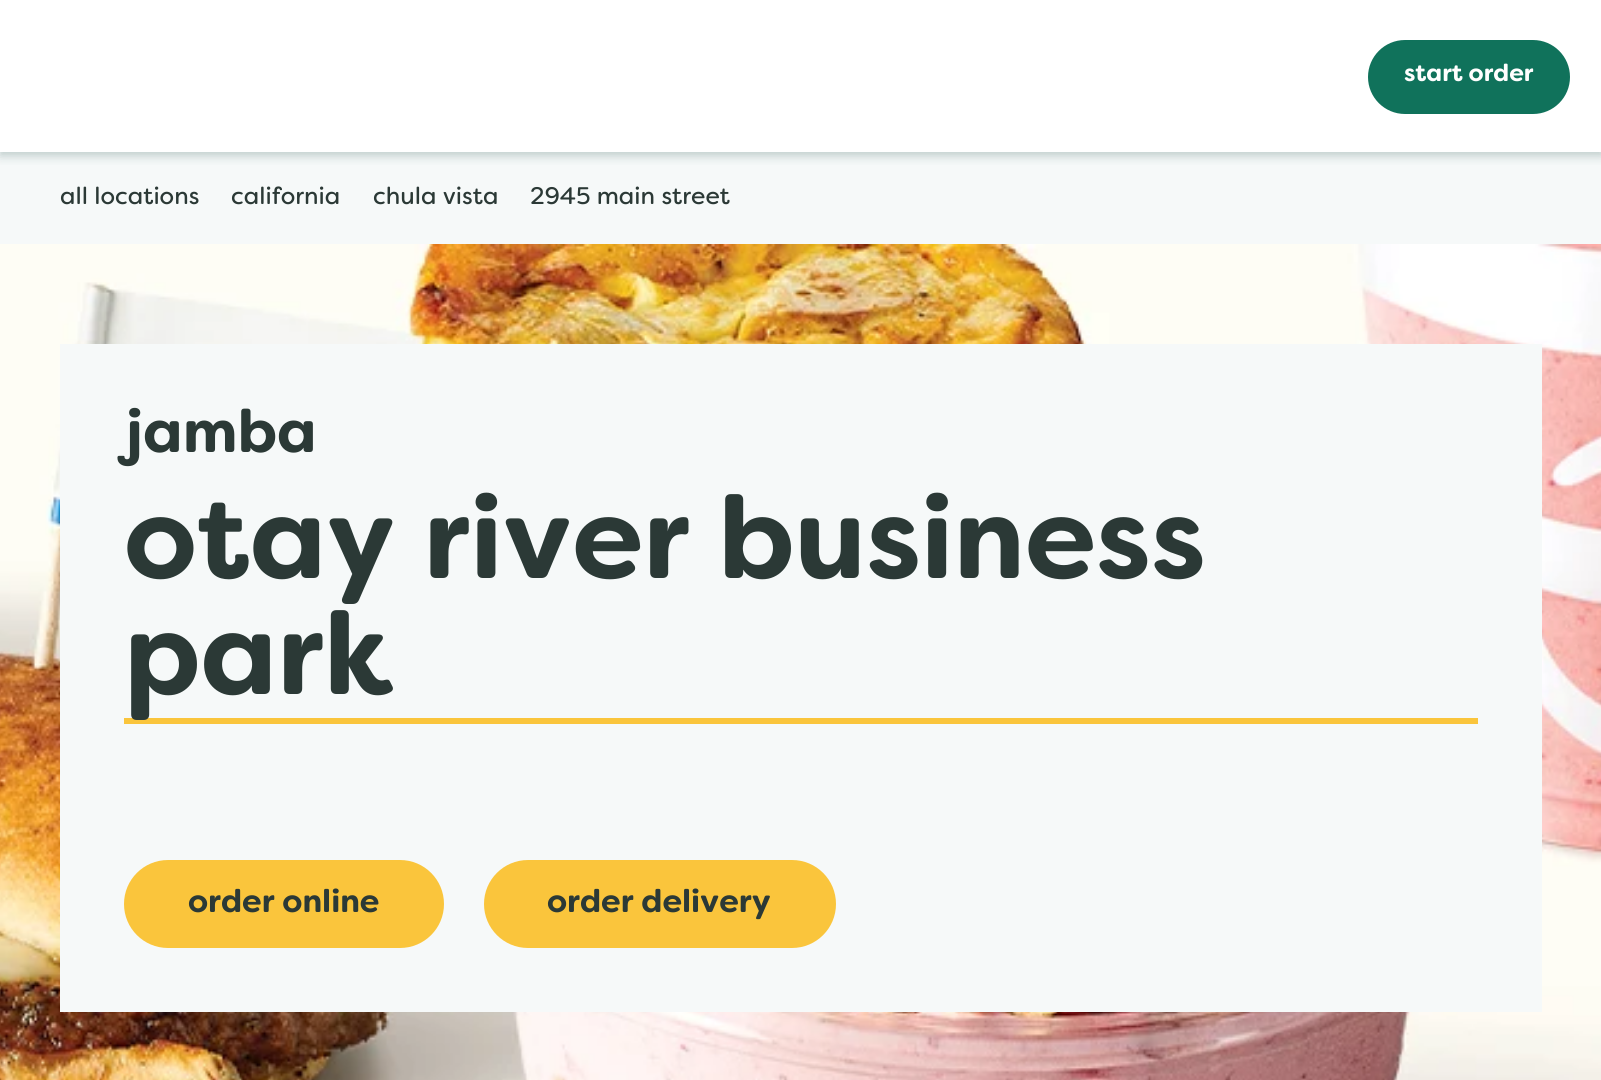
import math
import cairo

surface = cairo.ImageSurface(cairo.FORMAT_RGB24, 1601, 1080)
ctx = cairo.Context(surface)
options = cairo.FontOptions()
options.set_hint_metrics(cairo.HINT_METRICS_OFF)
options.set_hint_style(cairo.HINT_STYLE_NONE)
ctx.set_font_options(options)
ctx.set_miter_limit(4)


def set_color(code):
    ctx.set_source_rgb(*(v / 255 for v in bytes.fromhex(code[-6:])))


def draw_text(x, y, s, family, size, color, bold=False, italic=False):
    ctx.select_font_face(family, cairo.FONT_SLANT_ITALIC if italic else cairo.FONT_SLANT_NORMAL, cairo.FONT_WEIGHT_BOLD if bold else cairo.FONT_WEIGHT_NORMAL)
    ctx.set_font_size(size)
    set_color(color)
    ctx.move_to(x, y)
    ctx.show_text(s)


def fill_rect(x, y, w, h, color):
    set_color(color)
    ctx.rectangle(x, y, w, h)
    ctx.fill()


def rounded_rect(x, y, w, h, r):
    ctx.new_sub_path()
    for i, (u, v) in enumerate([(x + w - r, y + h - r), (x + r, y + h - r), (x + r, y + r), (x + w - r, y + r)]):
        ctx.arc(u, v, r, i * math.pi / 2, (i + 1) * math.pi / 2)
    ctx.close_path()


def draw_shadow(x, y, w, h, r, blur, alpha):
    ctx.push_group_with_content(cairo.CONTENT_ALPHA)
    ctx.set_operator(cairo.OPERATOR_SOURCE)
    for i in range(15, -16, -2):
        e = blur * i / 6
        if min(w, h) + 2 * e > 0:
            ctx.set_source_rgba(0, 0, 0, alpha * math.erfc((i - 1) / 8.5) / 2)
            rounded_rect(x - e, y - e, w + 2 * e, h + 2 * e, max(0, min(r + e + blur * .6, min(w, h) / 2 + e)))
            ctx.fill()
    ctx.mask(ctx.pop_group())


def draw_image(path, x, y, w, h):
    ctx.save()
    ctx.set_source_surface(cairo.ImageSurface.create_from_png(path), x, y)
    ctx.rectangle(x, y, w, h)
    ctx.fill()
    ctx.restore()


set_color("#ffffff")
ctx.paint()
fill_rect(0, 152, 1601, 92, "#f6f9f9")
ctx.save()
ctx.rectangle(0, 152, 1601, 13)
ctx.clip()
set_color("#99afac")
draw_shadow(0, 4, 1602, 152, 0, 5, 0.6)
ctx.restore()
set_color("#10725b")
rounded_rect(1370, 42, 198, 70, 35)
ctx.fill_preserve()
ctx.set_line_width(4)
ctx.stroke()
draw_text(1404, 81, "start order", "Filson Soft", 24, "#ffffff", bold=True)
draw_text(60, 204, "all locations", "Filson Soft", 24, "#2b3936")
draw_text(231, 204, "california", "Filson Soft", 24, "#2b3936")
draw_text(373, 204, "chula vista", "Filson Soft", 24, "#2b3936")
draw_text(530, 204, "2945 main street", "Filson Soft", 24, "#2b3936")
draw_image("assets/img1.png", 0, 244, 1601, 836)
fill_rect(60, 344, 1482, 668, "#f6f9f9")
draw_text(124, 452, "jamba", "Filson Soft", 60, "#2b3936", bold=True)
fill_rect(124, 718, 1354, 6, "#fac53c")
draw_text(124, 578, "otay river business", "Filson Soft", 116, "#2b3936", bold=True)
draw_text(124, 694, "park", "Filson Soft", 116, "#2b3936", bold=True)
set_color("#fac53c")
rounded_rect(124, 860, 320, 88, 44)
ctx.fill()
draw_text(188, 912, "order online", "Filson Soft", 32, "#2b3936", bold=True)
set_color("#fac53c")
rounded_rect(484, 860, 352, 88, 44)
ctx.fill()
draw_text(547, 912, "order delivery", "Filson Soft", 32, "#2b3936", bold=True)
surface.write_to_png("output.png")
